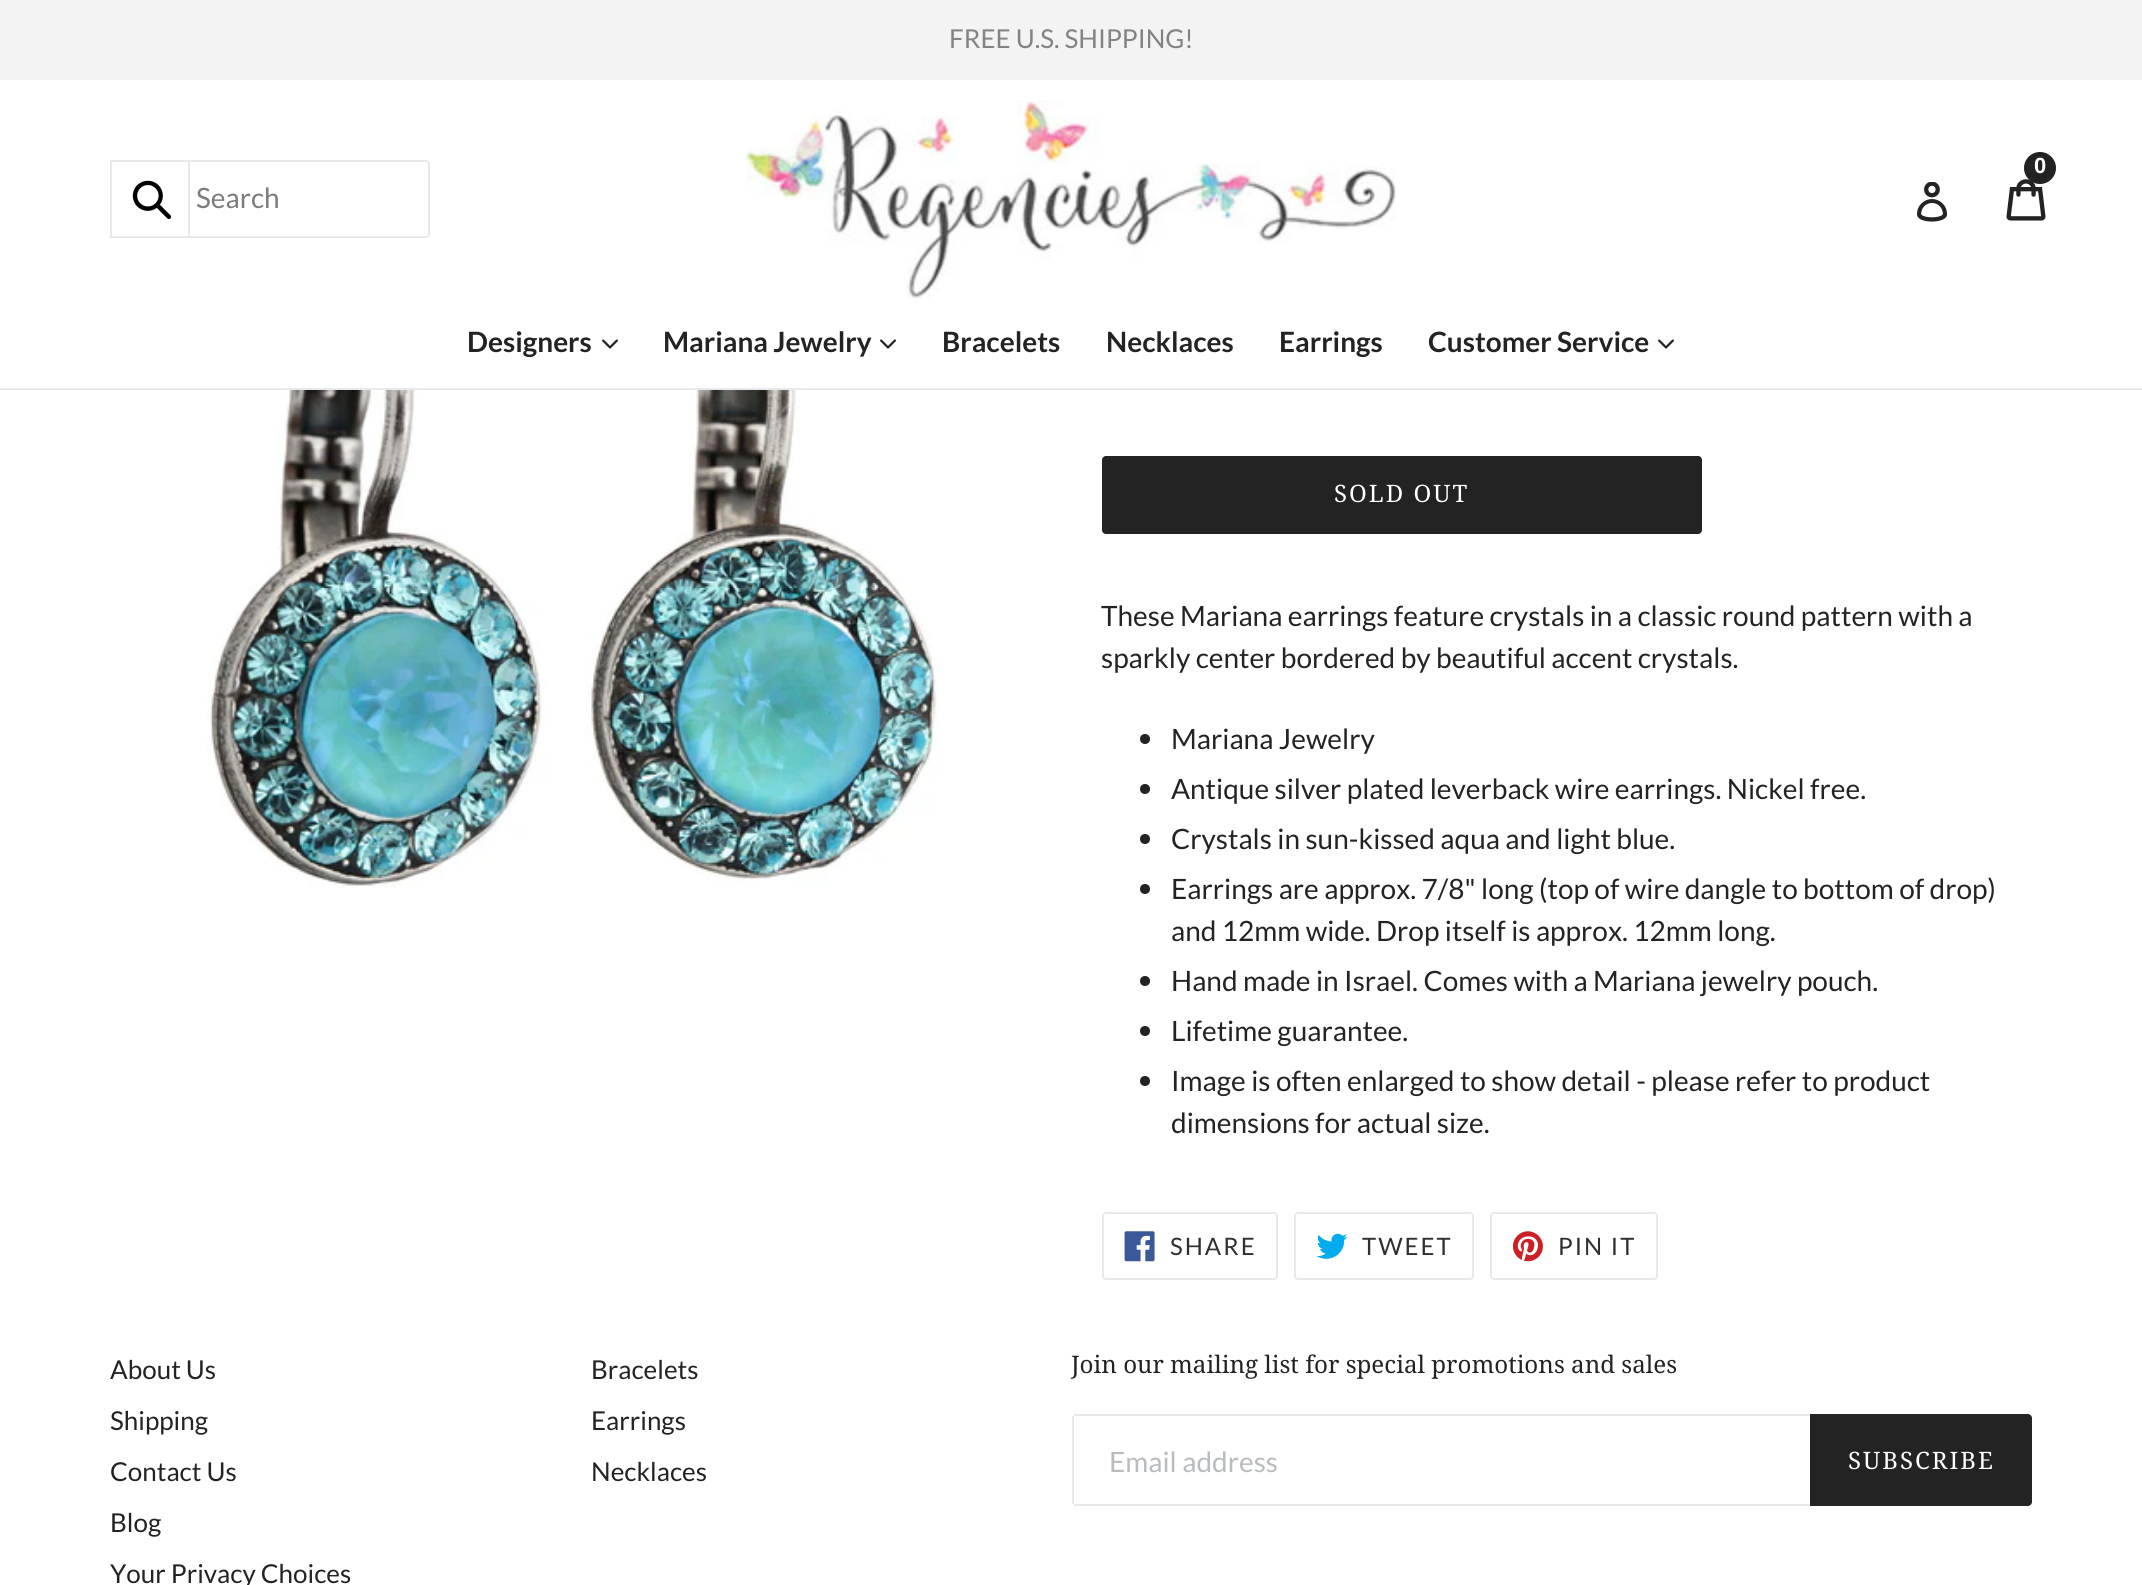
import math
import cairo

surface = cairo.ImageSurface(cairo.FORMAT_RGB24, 2142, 1585)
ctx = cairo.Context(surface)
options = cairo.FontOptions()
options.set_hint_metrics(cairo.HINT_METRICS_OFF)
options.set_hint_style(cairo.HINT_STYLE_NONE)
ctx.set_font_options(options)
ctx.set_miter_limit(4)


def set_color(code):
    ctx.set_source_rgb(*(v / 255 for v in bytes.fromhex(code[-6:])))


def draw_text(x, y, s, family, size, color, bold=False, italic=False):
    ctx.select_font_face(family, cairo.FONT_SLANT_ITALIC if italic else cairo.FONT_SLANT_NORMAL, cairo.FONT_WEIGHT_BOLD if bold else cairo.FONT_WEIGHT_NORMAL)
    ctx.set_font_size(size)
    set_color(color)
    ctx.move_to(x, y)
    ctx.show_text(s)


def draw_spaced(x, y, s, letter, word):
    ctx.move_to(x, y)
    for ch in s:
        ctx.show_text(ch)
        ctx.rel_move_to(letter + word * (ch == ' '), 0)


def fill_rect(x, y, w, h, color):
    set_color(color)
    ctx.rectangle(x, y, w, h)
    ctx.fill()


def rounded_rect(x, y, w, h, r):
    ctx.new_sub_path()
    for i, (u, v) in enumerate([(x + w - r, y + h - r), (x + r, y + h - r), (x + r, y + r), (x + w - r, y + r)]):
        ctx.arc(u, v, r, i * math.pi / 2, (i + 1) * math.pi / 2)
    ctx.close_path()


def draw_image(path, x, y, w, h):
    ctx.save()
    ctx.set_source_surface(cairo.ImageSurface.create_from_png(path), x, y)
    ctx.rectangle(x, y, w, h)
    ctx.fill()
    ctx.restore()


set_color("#ffffff")
ctx.paint()
fill_rect(0, 0, 2142, 80, "#f3f3f3")
draw_text(949, 48, "FREE U.S. SHIPPING!", "Lato", 26, "#838383")
draw_image("assets/img1.png", 745, 100, 651, 199)
draw_image("assets/img2.png", 2006, 179, 40, 42)
set_color("#232323")
ctx.arc(2040, 168, 16, 0, 2 * math.pi)
ctx.fill()
draw_text(2034, 173, "0", "Liberation Sans", 22, "#ffffff", bold=True)
draw_image("assets/img3.png", 1917, 182, 30, 40)
rounded_rect(111, 161, 318, 76, 3)
set_color("#e8e9eb")
ctx.stroke()
fill_rect(112, 162, 1, 74, "#ffffff")
ctx.rectangle(111, 161, 78, 76)
set_color("#e8e9eb")
ctx.stroke()
draw_image("assets/img4.png", 132, 180, 40, 40)
draw_text(196, 208, "Search", "Lato", 28, "#7b7b7b")
fill_rect(0, 388, 2142, 2, "#e8e9eb")
draw_text(467, 352, "Designers", "Lato", 28, "#232323", bold=True)
draw_image("assets/img5.png", 602, 339, 16, 10)
draw_text(663, 352, "Mariana Jewelry", "Lato", 28, "#232323", bold=True)
draw_image("assets/img5.png", 880, 339, 16, 10)
draw_text(942, 352, "Bracelets", "Lato", 28, "#232323", bold=True)
draw_text(1106, 352, "Necklaces", "Lato", 28, "#232323", bold=True)
draw_text(1279, 352, "Earrings", "Lato", 28, "#232323", bold=True)
draw_text(1428, 352, "Customer Service", "Lato", 28, "#232323", bold=True)
draw_image("assets/img5.png", 1658, 339, 16, 10)
draw_image("assets/img6.png", 207, 390, 732, 498)
rounded_rect(1102, 456, 600, 78, 4)
ctx.fill()
ctx.select_font_face("Droid Serif")
ctx.set_font_size(24)
set_color("#ffffff")
draw_spaced(1334, 502, "SOLD OUT", 2, 0)
draw_text(1101, 626, "These Mariana earrings feature crystals in a classic round pattern with a", "Lato", 28, "#232323")
draw_text(1101, 668, "sparkly center bordered by beautiful accent crystals.", "Lato", 28, "#232323")
ctx.new_path()
ctx.arc(1145, 739, 5, 0, 2 * math.pi)
ctx.fill()
draw_text(1171, 749, "Mariana Jewelry", "Lato", 28, "#232323")
ctx.new_path()
ctx.arc(1145, 789, 5, 0, 2 * math.pi)
ctx.fill()
draw_text(1171, 799, "Antique silver plated leverback wire earrings. Nickel free.", "Lato", 28, "#232323")
ctx.new_path()
ctx.arc(1145, 839, 5, 0, 2 * math.pi)
ctx.fill()
draw_text(1171, 849, "Crystals in sun-kissed aqua and light blue.", "Lato", 28, "#232323")
ctx.new_path()
ctx.arc(1145, 889, 5, 0, 2 * math.pi)
ctx.fill()
draw_text(1171, 899, "Earrings are approx. 7/8\" long (top of wire dangle to bottom of drop)", "Lato", 28, "#232323")
draw_text(1171, 941, "and 12mm wide. Drop itself is approx. 12mm long.", "Lato", 28, "#232323")
ctx.new_path()
ctx.arc(1145, 981, 5, 0, 2 * math.pi)
ctx.fill()
draw_text(1171, 991, "Hand made in Israel. Comes with a Mariana jewelry pouch.", "Lato", 28, "#232323")
ctx.new_path()
ctx.arc(1145, 1031, 5, 0, 2 * math.pi)
ctx.fill()
draw_text(1171, 1041, "Lifetime guarantee.", "Lato", 28, "#232323")
ctx.new_path()
ctx.arc(1145, 1081, 5, 0, 2 * math.pi)
ctx.fill()
draw_text(1171, 1091, "Image is often enlarged to show detail - please refer to product", "Lato", 28, "#232323")
draw_text(1171, 1133, "dimensions for actual size.", "Lato", 28, "#232323")
rounded_rect(1103, 1213, 174, 66, 3)
set_color("#e8e9eb")
ctx.stroke()
draw_image("assets/img7.png", 1124, 1231, 31, 31)
ctx.set_font_size(24)
set_color("#303030")
draw_spaced(1170, 1255, "SHARE", 2, 0)
rounded_rect(1295, 1213, 178, 66, 3)
set_color("#e8e9eb")
ctx.stroke()
draw_image("assets/img8.png", 1316, 1233, 32, 26)
set_color("#303030")
draw_spaced(1362, 1255, "TWEET", 2, 0)
rounded_rect(1491, 1213, 166, 66, 3)
set_color("#e8e9eb")
ctx.stroke()
draw_image("assets/img9.png", 1512, 1231, 31, 31)
set_color("#303030")
draw_spaced(1558, 1255, "PIN IT", 2, 0)
draw_text(110, 1379, "About Us", "Lato", 26, "#232323")
draw_text(110, 1430, "Shipping", "Lato", 26, "#232323")
draw_text(110, 1481, "Contact Us", "Lato", 26, "#232323")
draw_text(110, 1532, "Blog", "Lato", 26, "#232323")
draw_text(110, 1583, "Your Privacy Choices", "Lato", 26, "#232323")
draw_text(591, 1379, "Bracelets", "Lato", 26, "#232323")
draw_text(591, 1430, "Earrings", "Lato", 26, "#232323")
draw_text(591, 1481, "Necklaces", "Lato", 26, "#232323")
draw_text(1071, 1373, "Join our mailing list for special promotions and sales", "Droid Serif", 24.15, "#232323")
fill_rect(1074, 1414, 736, 2, "#e8e9eb")
fill_rect(1074, 1504, 736, 2, "#e8e9eb")
fill_rect(1072, 1416, 2, 88, "#e8e9eb")
draw_text(1109, 1472, "Email address", "Lato", 28, "#b9bcbe")
set_color("#232323")
ctx.new_path()
ctx.move_to(1810, 1414)
ctx.line_to(2028, 1414)
ctx.curve_to(2030, 1414, 2032, 1416, 2032, 1418)
ctx.line_to(2032, 1502)
ctx.curve_to(2032, 1504, 2030, 1506, 2028, 1506)
ctx.line_to(1810, 1506)
ctx.close_path()
ctx.fill()
ctx.select_font_face("Droid Serif")
ctx.set_font_size(24)
set_color("#ffffff")
draw_spaced(1848, 1469, "SUBSCRIBE", 2, 0)
surface.write_to_png("output.png")
